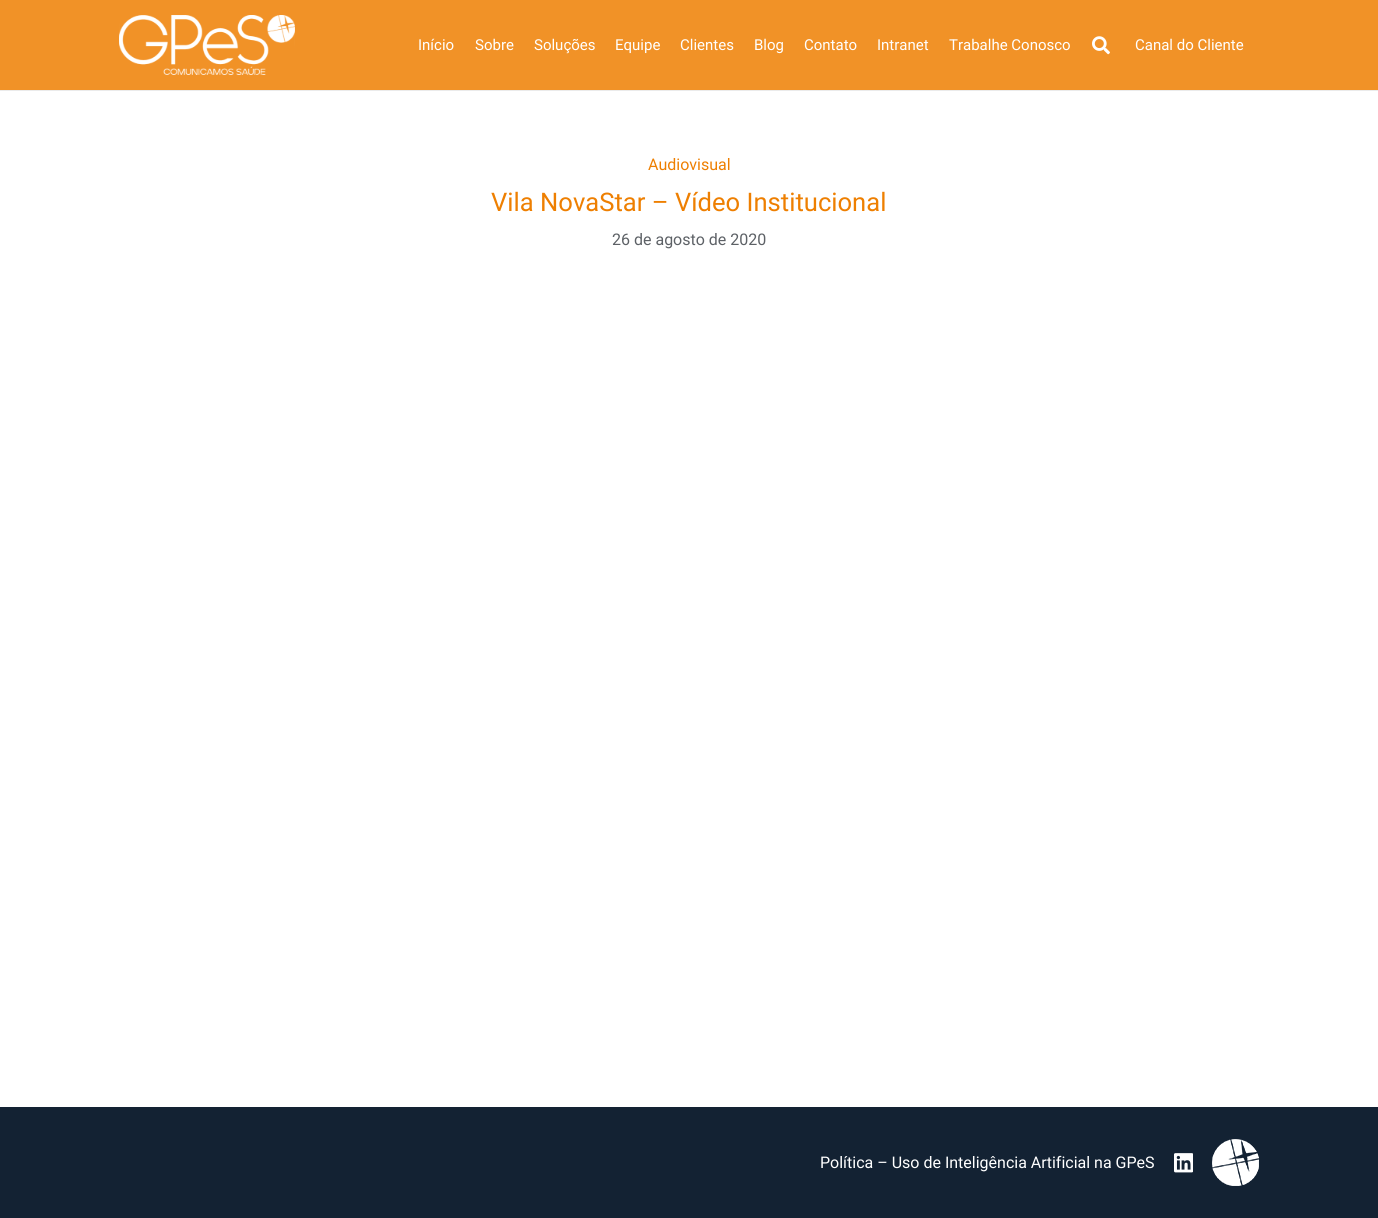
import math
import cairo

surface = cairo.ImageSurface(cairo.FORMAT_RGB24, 1378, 1218)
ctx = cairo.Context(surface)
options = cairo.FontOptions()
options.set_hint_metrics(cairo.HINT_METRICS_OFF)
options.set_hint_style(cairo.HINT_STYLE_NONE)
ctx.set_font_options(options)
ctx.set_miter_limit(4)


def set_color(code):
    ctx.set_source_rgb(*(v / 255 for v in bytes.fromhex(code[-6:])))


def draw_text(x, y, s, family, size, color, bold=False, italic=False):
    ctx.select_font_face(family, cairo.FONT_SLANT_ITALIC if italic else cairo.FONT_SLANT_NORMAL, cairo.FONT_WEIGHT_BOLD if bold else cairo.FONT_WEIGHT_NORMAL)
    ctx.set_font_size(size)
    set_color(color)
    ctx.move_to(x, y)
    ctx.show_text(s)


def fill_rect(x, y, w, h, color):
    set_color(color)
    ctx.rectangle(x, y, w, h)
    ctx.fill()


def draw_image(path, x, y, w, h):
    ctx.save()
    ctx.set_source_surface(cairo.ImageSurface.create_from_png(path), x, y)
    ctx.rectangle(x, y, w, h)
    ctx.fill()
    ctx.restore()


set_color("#ffffff")
ctx.paint()
fill_rect(0, 90, 1378, 1, "#ebebeb")
fill_rect(0, 0, 1378, 90, "#f19227")
draw_image("assets/img1.png", 119, 15, 176, 60)
draw_text(418, 50, "Início", "Roboto", 15, "#ffffff")
draw_text(475, 50, "Sobre", "Roboto", 15, "#ffffff")
draw_text(534, 50, "Soluções", "Roboto", 15, "#ffffff")
draw_text(615, 50, "Equipe", "Roboto", 15, "#ffffff")
draw_text(680, 50, "Clientes", "Roboto", 15, "#ffffff")
draw_text(754, 50, "Blog", "Roboto", 15, "#ffffff")
draw_text(804, 50, "Contato", "Roboto", 15, "#ffffff")
draw_text(877, 50, "Intranet", "Roboto", 15, "#ffffff")
draw_text(949, 50, "Trabalhe Conosco", "Roboto", 15, "#ffffff")
draw_image("assets/img2.png", 1092, 36, 18, 19)
draw_text(1135, 50, "Canal do Cliente", "Roboto", 15, "#ffffff")
draw_text(648, 170, "Audiovisual", "Roboto", 16, "#ee7f01")
draw_text(491, 211, "Vila NovaStar – Vídeo Institucional", "Roboto", 25.6, "#ee7f01")
draw_text(612, 245, "26 de agosto de 2020", "Roboto", 16, "#5d6166")
fill_rect(0, 1107, 1378, 111, "#132233")
draw_text(820, 1168, "Política – Uso de Inteligência Artificial na GPeS", "Roboto", 16, "#ffffff")
draw_image("assets/img3.png", 1174, 1153, 19, 20)
draw_image("assets/img4.png", 1212, 1139, 47, 47)
surface.write_to_png("output.png")
